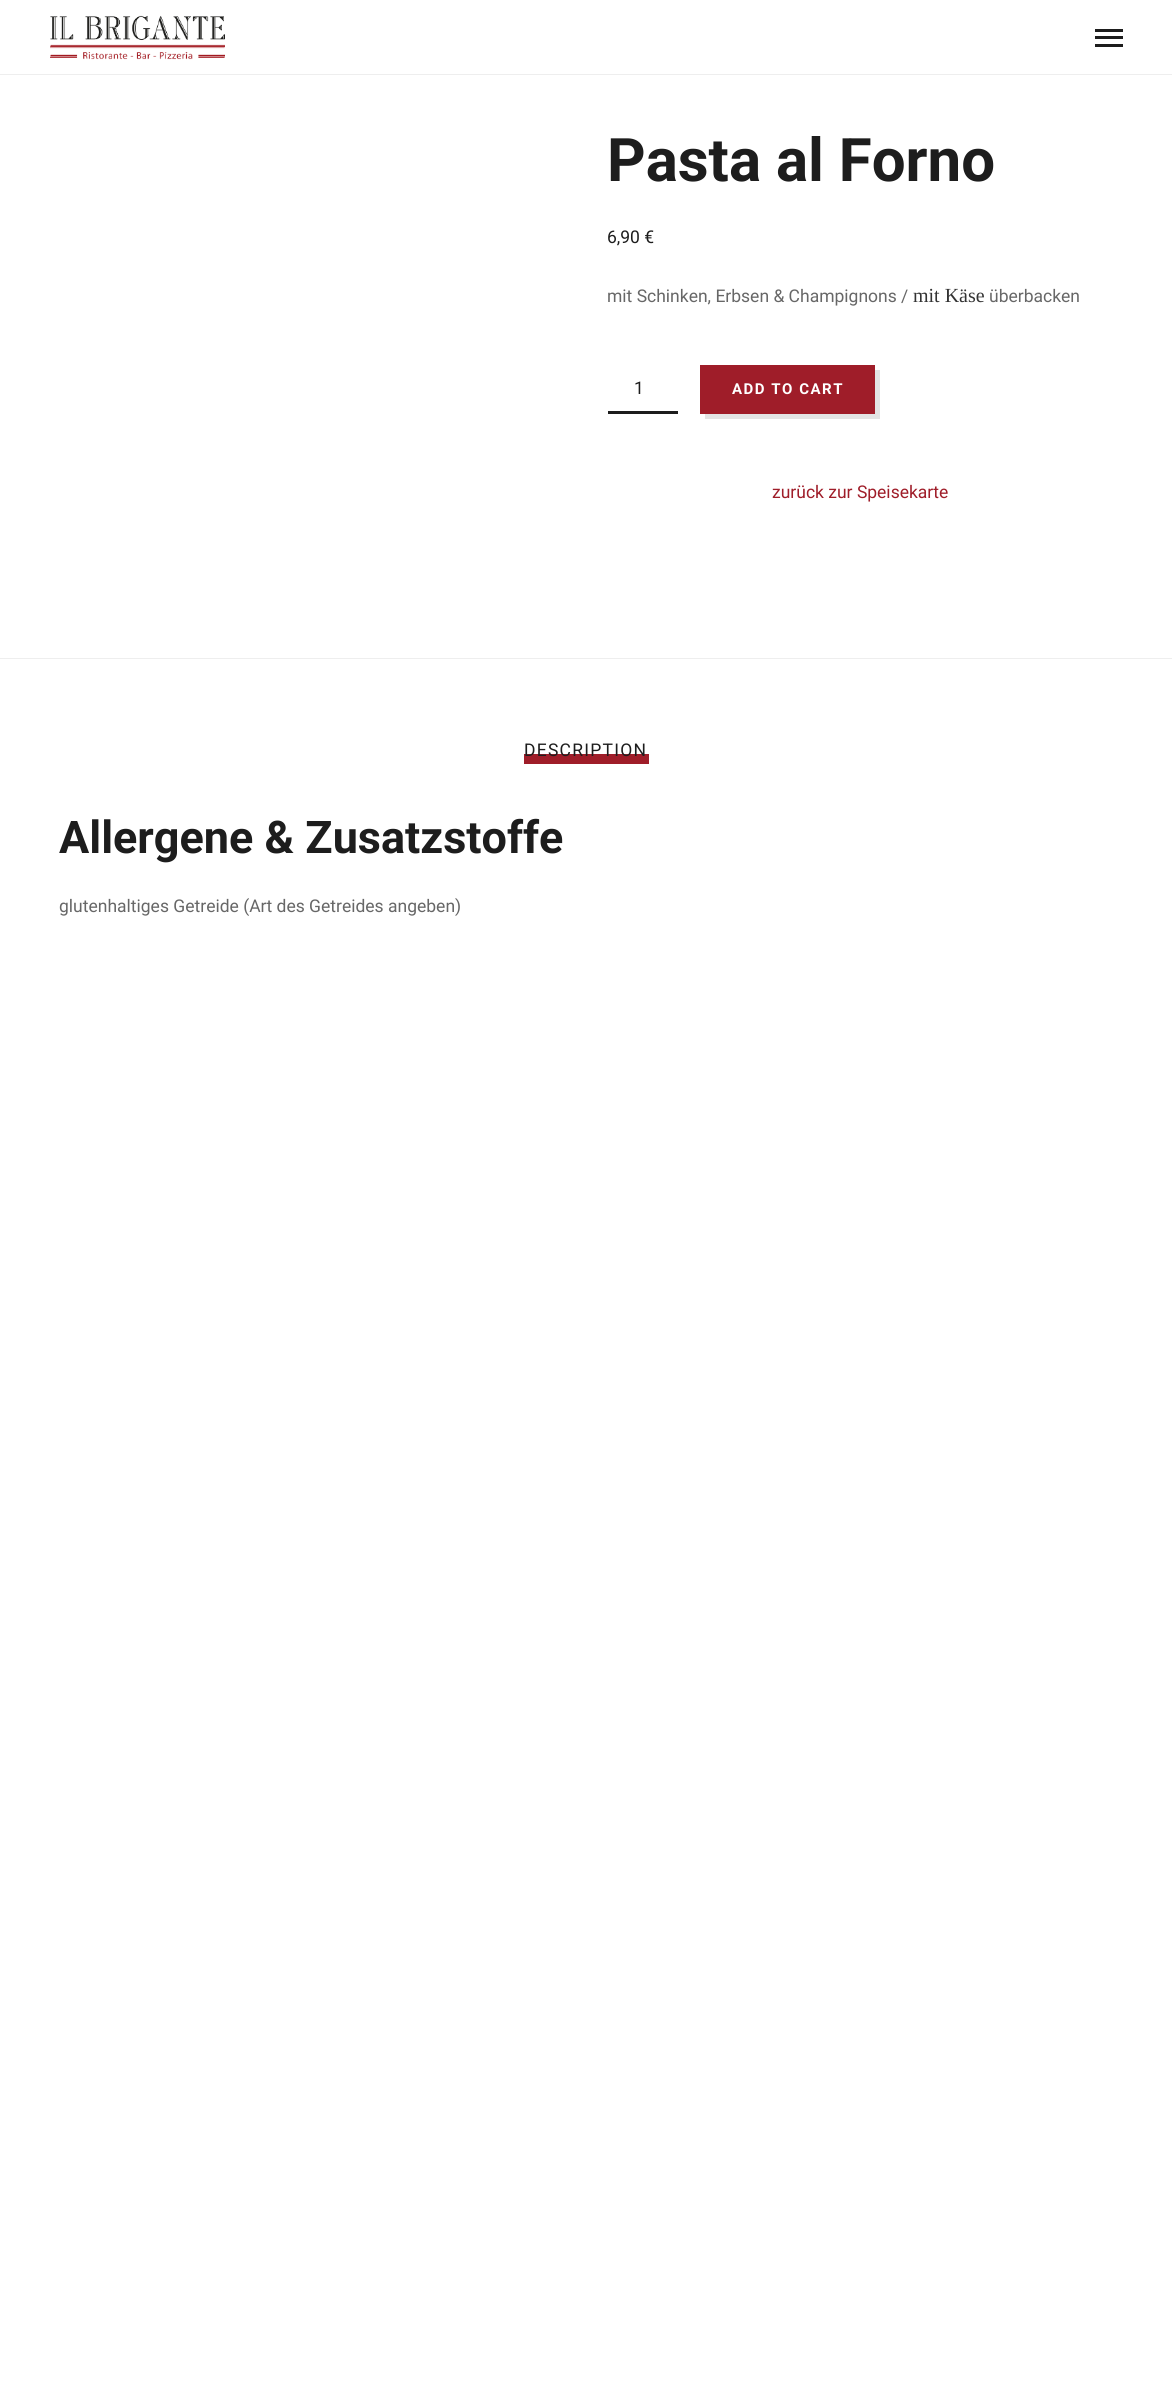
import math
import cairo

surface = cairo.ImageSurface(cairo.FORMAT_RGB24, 1172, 2387)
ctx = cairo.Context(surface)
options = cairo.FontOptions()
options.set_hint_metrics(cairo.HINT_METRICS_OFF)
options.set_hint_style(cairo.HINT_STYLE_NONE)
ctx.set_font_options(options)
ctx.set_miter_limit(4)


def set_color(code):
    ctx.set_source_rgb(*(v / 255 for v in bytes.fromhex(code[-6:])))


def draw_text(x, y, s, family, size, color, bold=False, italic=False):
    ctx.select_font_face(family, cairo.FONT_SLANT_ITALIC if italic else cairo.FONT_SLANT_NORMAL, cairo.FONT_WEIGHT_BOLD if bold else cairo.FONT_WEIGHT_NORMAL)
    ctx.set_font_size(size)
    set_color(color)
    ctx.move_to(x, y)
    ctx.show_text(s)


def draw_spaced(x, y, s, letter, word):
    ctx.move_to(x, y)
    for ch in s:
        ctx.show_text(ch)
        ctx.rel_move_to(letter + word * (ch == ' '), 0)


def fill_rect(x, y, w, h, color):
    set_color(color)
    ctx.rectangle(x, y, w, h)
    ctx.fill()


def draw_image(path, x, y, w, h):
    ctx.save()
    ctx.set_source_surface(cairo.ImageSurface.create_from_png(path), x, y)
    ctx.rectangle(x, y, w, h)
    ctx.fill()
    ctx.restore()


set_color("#ffffff")
ctx.paint()
fill_rect(0, 74, 1172, 1, "#eeeeee")
draw_image("assets/img1.png", 50, 15, 175, 45)
fill_rect(1095, 36, 28, 3, "#1d1d1d")
fill_rect(1095, 29, 28, 3, "#1d1d1d")
fill_rect(1095, 44, 28, 3, "#1d1d1d")
draw_text(607, 181, "Pasta al Forno", "Roboto", 60, "#1d1d1d", bold=True)
draw_text(607, 243, "6,90 €", "Roboto", 17.5, "#1d1d1d")
draw_text(607, 302, "mit Schinken, Erbsen & Champignons /", "Roboto", 17.5, "#676767")
draw_text(913, 302, "mit Käse", "Liberation Serif", 20, "#333333")
draw_text(989, 302, "überbacken", "Roboto", 17.5, "#676767")
fill_rect(608, 411, 70, 3, "#1d1d1d")
draw_text(634, 394, "1", "Roboto", 17.5, "#1d1d1d")
set_color("#e4e4e4")
ctx.new_path()
ctx.move_to(705, 414)
ctx.line_to(705, 419)
ctx.line_to(880, 419)
ctx.line_to(880, 370)
ctx.line_to(875, 370)
ctx.line_to(875, 414)
ctx.close_path()
ctx.fill()
fill_rect(700, 365, 175, 49, "#9f1d29")
ctx.select_font_face("Roboto", cairo.FONT_SLANT_NORMAL, cairo.FONT_WEIGHT_BOLD)
ctx.set_font_size(15)
set_color("#ffffff")
draw_spaced(732, 394, "ADD TO CART", 1.5, 0)
draw_text(772, 498, "zurück zur Speisekarte", "Roboto", 17.5, "#9f1d29")
fill_rect(0, 658, 1172, 1, "#eeeeee")
fill_rect(524, 754, 125, 10, "#9f1d29")
set_color("#1d1d1d")
draw_spaced(524, 756, "DESCRIPTION", 1.25, 0)
draw_text(59, 853, "Allergene & Zusatzstoffe", "Roboto", 45, "#1d1d1d", bold=True)
draw_text(59, 912, "glutenhaltiges Getreide (Art des Getreides angeben)", "Roboto", 17.5, "#676767")
surface.write_to_png("output.png")
